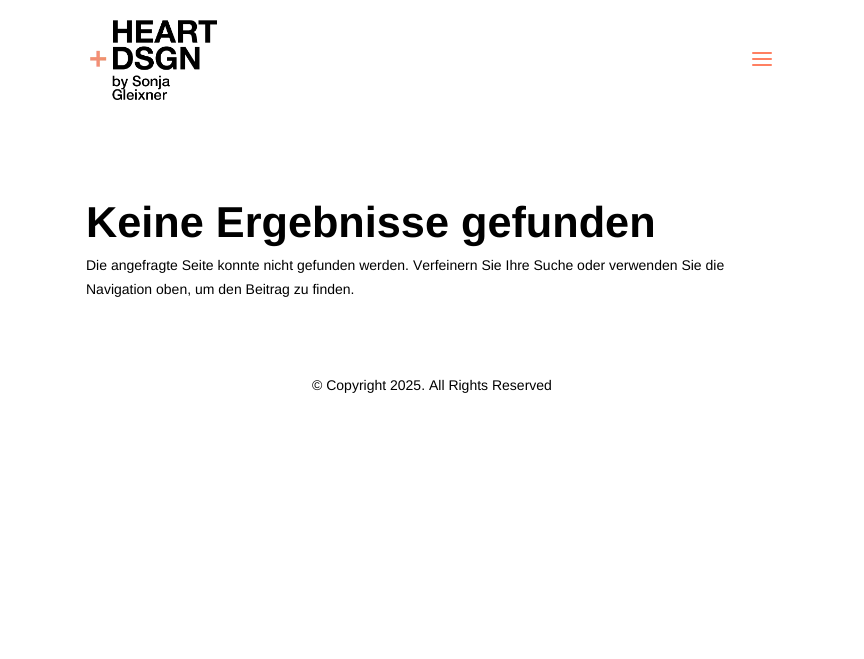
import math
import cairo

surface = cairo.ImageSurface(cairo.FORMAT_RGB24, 864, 659)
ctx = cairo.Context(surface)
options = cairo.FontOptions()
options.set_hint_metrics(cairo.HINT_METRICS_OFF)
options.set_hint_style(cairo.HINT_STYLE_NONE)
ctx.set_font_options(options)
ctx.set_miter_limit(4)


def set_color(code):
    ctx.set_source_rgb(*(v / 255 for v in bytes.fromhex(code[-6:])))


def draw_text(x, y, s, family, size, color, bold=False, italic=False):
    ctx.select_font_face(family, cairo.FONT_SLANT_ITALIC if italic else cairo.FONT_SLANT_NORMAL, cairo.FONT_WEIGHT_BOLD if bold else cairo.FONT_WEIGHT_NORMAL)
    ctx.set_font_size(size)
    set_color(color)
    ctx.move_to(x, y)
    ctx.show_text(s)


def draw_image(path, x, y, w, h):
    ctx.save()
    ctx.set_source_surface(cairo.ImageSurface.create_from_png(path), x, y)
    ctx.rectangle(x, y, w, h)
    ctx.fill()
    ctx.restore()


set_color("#ffffff")
ctx.paint()
draw_image("assets/img1.png", 90, 20, 127, 80)
draw_image("assets/img2.png", 752, 52, 20, 14)
draw_text(86, 237, "Keine Ergebnisse gefunden", "Liberation Sans", 43.25, "#000000", bold=True)
draw_text(86, 270, "Die angefragte Seite konnte nicht gefunden werden. Verfeinern Sie Ihre Suche oder verwenden Sie die", "Liberation Sans", 14, "#000000")
draw_text(86, 294, "Navigation oben, um den Beitrag zu finden.", "Liberation Sans", 14, "#000000")
draw_text(312, 390, "© Copyright 2025. All Rights Reserved", "Liberation Sans", 14, "#000000")
surface.write_to_png("output.png")
